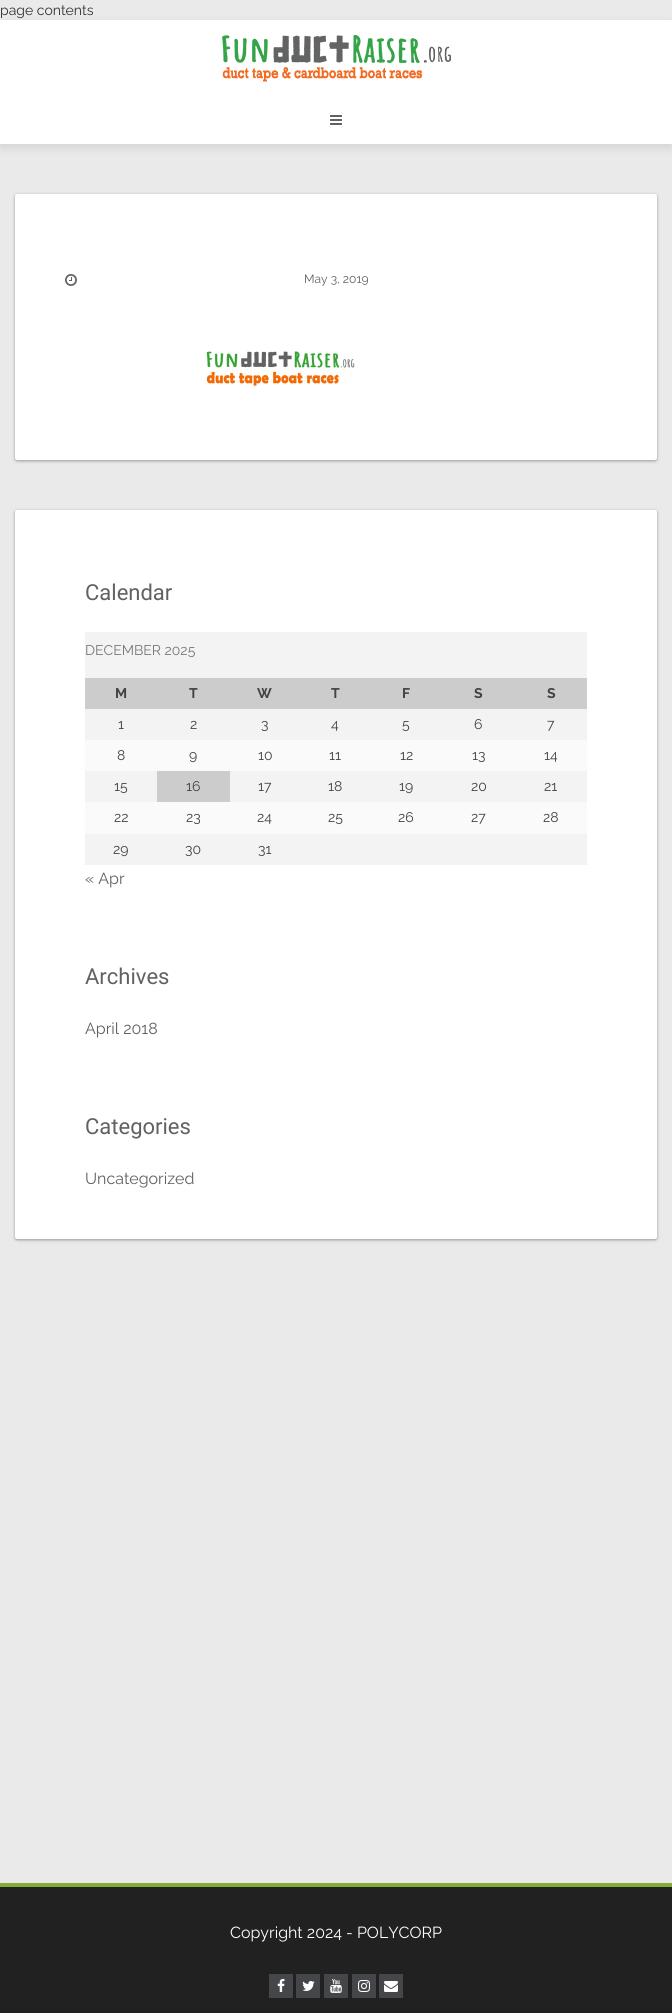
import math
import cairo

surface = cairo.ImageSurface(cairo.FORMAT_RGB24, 672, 2013)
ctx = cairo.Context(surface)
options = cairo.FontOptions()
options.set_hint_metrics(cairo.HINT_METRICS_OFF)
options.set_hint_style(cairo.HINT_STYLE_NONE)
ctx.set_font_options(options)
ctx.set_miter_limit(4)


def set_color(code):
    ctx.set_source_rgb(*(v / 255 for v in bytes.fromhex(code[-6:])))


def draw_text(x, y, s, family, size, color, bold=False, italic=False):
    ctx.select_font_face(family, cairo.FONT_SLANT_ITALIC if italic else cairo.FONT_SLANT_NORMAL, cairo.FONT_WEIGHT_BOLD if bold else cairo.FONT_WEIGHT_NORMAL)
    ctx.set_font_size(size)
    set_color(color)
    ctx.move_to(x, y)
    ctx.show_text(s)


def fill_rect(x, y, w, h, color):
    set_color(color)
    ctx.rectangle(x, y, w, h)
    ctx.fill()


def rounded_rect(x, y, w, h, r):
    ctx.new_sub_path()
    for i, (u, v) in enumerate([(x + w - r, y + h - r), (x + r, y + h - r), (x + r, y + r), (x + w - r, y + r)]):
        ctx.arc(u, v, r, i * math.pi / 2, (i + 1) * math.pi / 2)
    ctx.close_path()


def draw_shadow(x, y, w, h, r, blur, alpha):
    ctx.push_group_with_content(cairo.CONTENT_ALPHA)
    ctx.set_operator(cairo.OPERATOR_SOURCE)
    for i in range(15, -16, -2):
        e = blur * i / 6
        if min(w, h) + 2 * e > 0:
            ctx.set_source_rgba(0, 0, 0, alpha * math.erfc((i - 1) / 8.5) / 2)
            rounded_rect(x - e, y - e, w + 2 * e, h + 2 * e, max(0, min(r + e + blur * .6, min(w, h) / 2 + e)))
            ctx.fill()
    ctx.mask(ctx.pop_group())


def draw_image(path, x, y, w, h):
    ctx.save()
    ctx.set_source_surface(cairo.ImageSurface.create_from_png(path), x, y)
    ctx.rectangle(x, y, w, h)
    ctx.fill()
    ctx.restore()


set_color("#eaeaea")
ctx.paint()
draw_text(0, 15, "page contents", "Raleway", 14, "#333333")
set_color("#000000")
draw_shadow(0, 24, 672, 124, 0, 5, 0.1)
fill_rect(0, 20, 672, 124, "#ffffff")
draw_image("assets/img1.png", 222, 35, 229, 47)
draw_image("assets/img2.png", 330, 115, 12, 10)
set_color("#221919")
draw_shadow(15, 195, 642, 266, 2, 1.5, 0.4)
set_color("#ffffff")
rounded_rect(15, 194, 642, 266, 2)
ctx.fill()
draw_image("assets/img3.png", 65, 274, 12, 12)
draw_text(304, 283, "May 3, 2019", "Raleway", 12, "#616161")
draw_image("assets/img4.png", 206, 351, 149, 35)
set_color("#221919")
draw_shadow(15, 511, 642, 729, 2, 1.5, 0.4)
set_color("#ffffff")
rounded_rect(15, 510, 642, 729, 2)
ctx.fill()
draw_text(85, 600, "Calendar", "Roboto", 22, "#616161")
fill_rect(85, 632, 502, 233, "#f3f3f3")
draw_text(85, 655, "DECEMBER 2025", "Raleway", 14, "#777777")
fill_rect(85, 678, 502, 31, "#cccccc")
draw_text(115, 698, "M", "Raleway", 14, "#434343", bold=True)
draw_text(189, 698, "T", "Raleway", 14, "#434343", bold=True)
draw_text(257, 698, "W", "Raleway", 14, "#434343", bold=True)
draw_text(331, 698, "T", "Raleway", 14, "#434343", bold=True)
draw_text(402, 698, "F", "Raleway", 14, "#434343", bold=True)
draw_text(474, 698, "S", "Raleway", 14, "#434343", bold=True)
draw_text(547, 698, "S", "Raleway", 14, "#434343", bold=True)
draw_text(118, 729, "1", "Raleway", 14, "#434343")
draw_text(190, 729, "2", "Raleway", 14, "#434343")
draw_text(261, 729, "3", "Raleway", 14, "#434343")
draw_text(331, 729, "4", "Raleway", 14, "#434343")
draw_text(402, 729, "5", "Raleway", 14, "#434343")
draw_text(474, 729, "6", "Raleway", 14, "#434343")
draw_text(547, 729, "7", "Raleway", 14, "#434343")
fill_rect(85, 740, 502, 31, "#fafafa")
draw_text(117, 760, "8", "Raleway", 14, "#434343")
draw_text(189, 760, "9", "Raleway", 14, "#434343")
draw_text(258, 760, "10", "Raleway", 14, "#434343")
draw_text(329, 760, "11", "Raleway", 14, "#434343")
draw_text(400, 760, "12", "Raleway", 14, "#434343")
draw_text(472, 760, "13", "Raleway", 14, "#434343")
draw_text(544, 760, "14", "Raleway", 14, "#434343")
draw_text(114, 791, "15", "Raleway", 14, "#434343")
fill_rect(157, 771, 73, 31, "#cccccc")
draw_text(186, 791, "16", "Raleway", 14, "#434343")
draw_text(258, 791, "17", "Raleway", 14, "#434343")
draw_text(328, 791, "18", "Raleway", 14, "#434343")
draw_text(399, 791, "19", "Raleway", 14, "#434343")
draw_text(471, 791, "20", "Raleway", 14, "#434343")
draw_text(544, 791, "21", "Raleway", 14, "#434343")
fill_rect(85, 802, 502, 32, "#fafafa")
draw_text(114, 822, "22", "Raleway", 14, "#434343")
draw_text(186, 822, "23", "Raleway", 14, "#434343")
draw_text(257, 822, "24", "Raleway", 14, "#434343")
draw_text(328, 822, "25", "Raleway", 14, "#434343")
draw_text(398, 822, "26", "Raleway", 14, "#434343")
draw_text(471, 822, "27", "Raleway", 14, "#434343")
draw_text(543, 822, "28", "Raleway", 14, "#434343")
draw_text(113, 854, "29", "Raleway", 14, "#434343")
draw_text(185, 854, "30", "Raleway", 14, "#434343")
draw_text(258, 854, "31", "Raleway", 14, "#434343")
draw_text(85, 884, "« Apr", "Raleway", 16, "#616161")
draw_text(85, 984, "Archives", "Roboto", 22, "#616161")
draw_text(85, 1034, "April 2018", "Raleway", 16, "#616161")
draw_text(85, 1134, "Categories", "Roboto", 22, "#616161")
draw_text(85, 1184, "Uncategorized", "Raleway", 16, "#616161")
fill_rect(0, 1887, 672, 126, "#212121")
fill_rect(0, 1883, 672, 4, "#84ad37")
draw_text(230, 1938, "Copyright 2024 - POLYCORP", "Raleway", 16, "#ffffff")
fill_rect(269, 1974, 24, 24, "#444649")
draw_image("assets/img5.png", 277, 1979, 8, 13)
fill_rect(296, 1974, 24, 24, "#444649")
draw_image("assets/img6.png", 302, 1981, 13, 10)
fill_rect(324, 1974, 24, 24, "#444649")
draw_image("assets/img7.png", 330, 1979, 12, 14)
fill_rect(352, 1974, 24, 24, "#444649")
draw_image("assets/img8.png", 358, 1980, 12, 12)
fill_rect(379, 1974, 24, 24, "#444649")
draw_image("assets/img9.png", 384, 1981, 14, 11)
surface.write_to_png("output.png")
